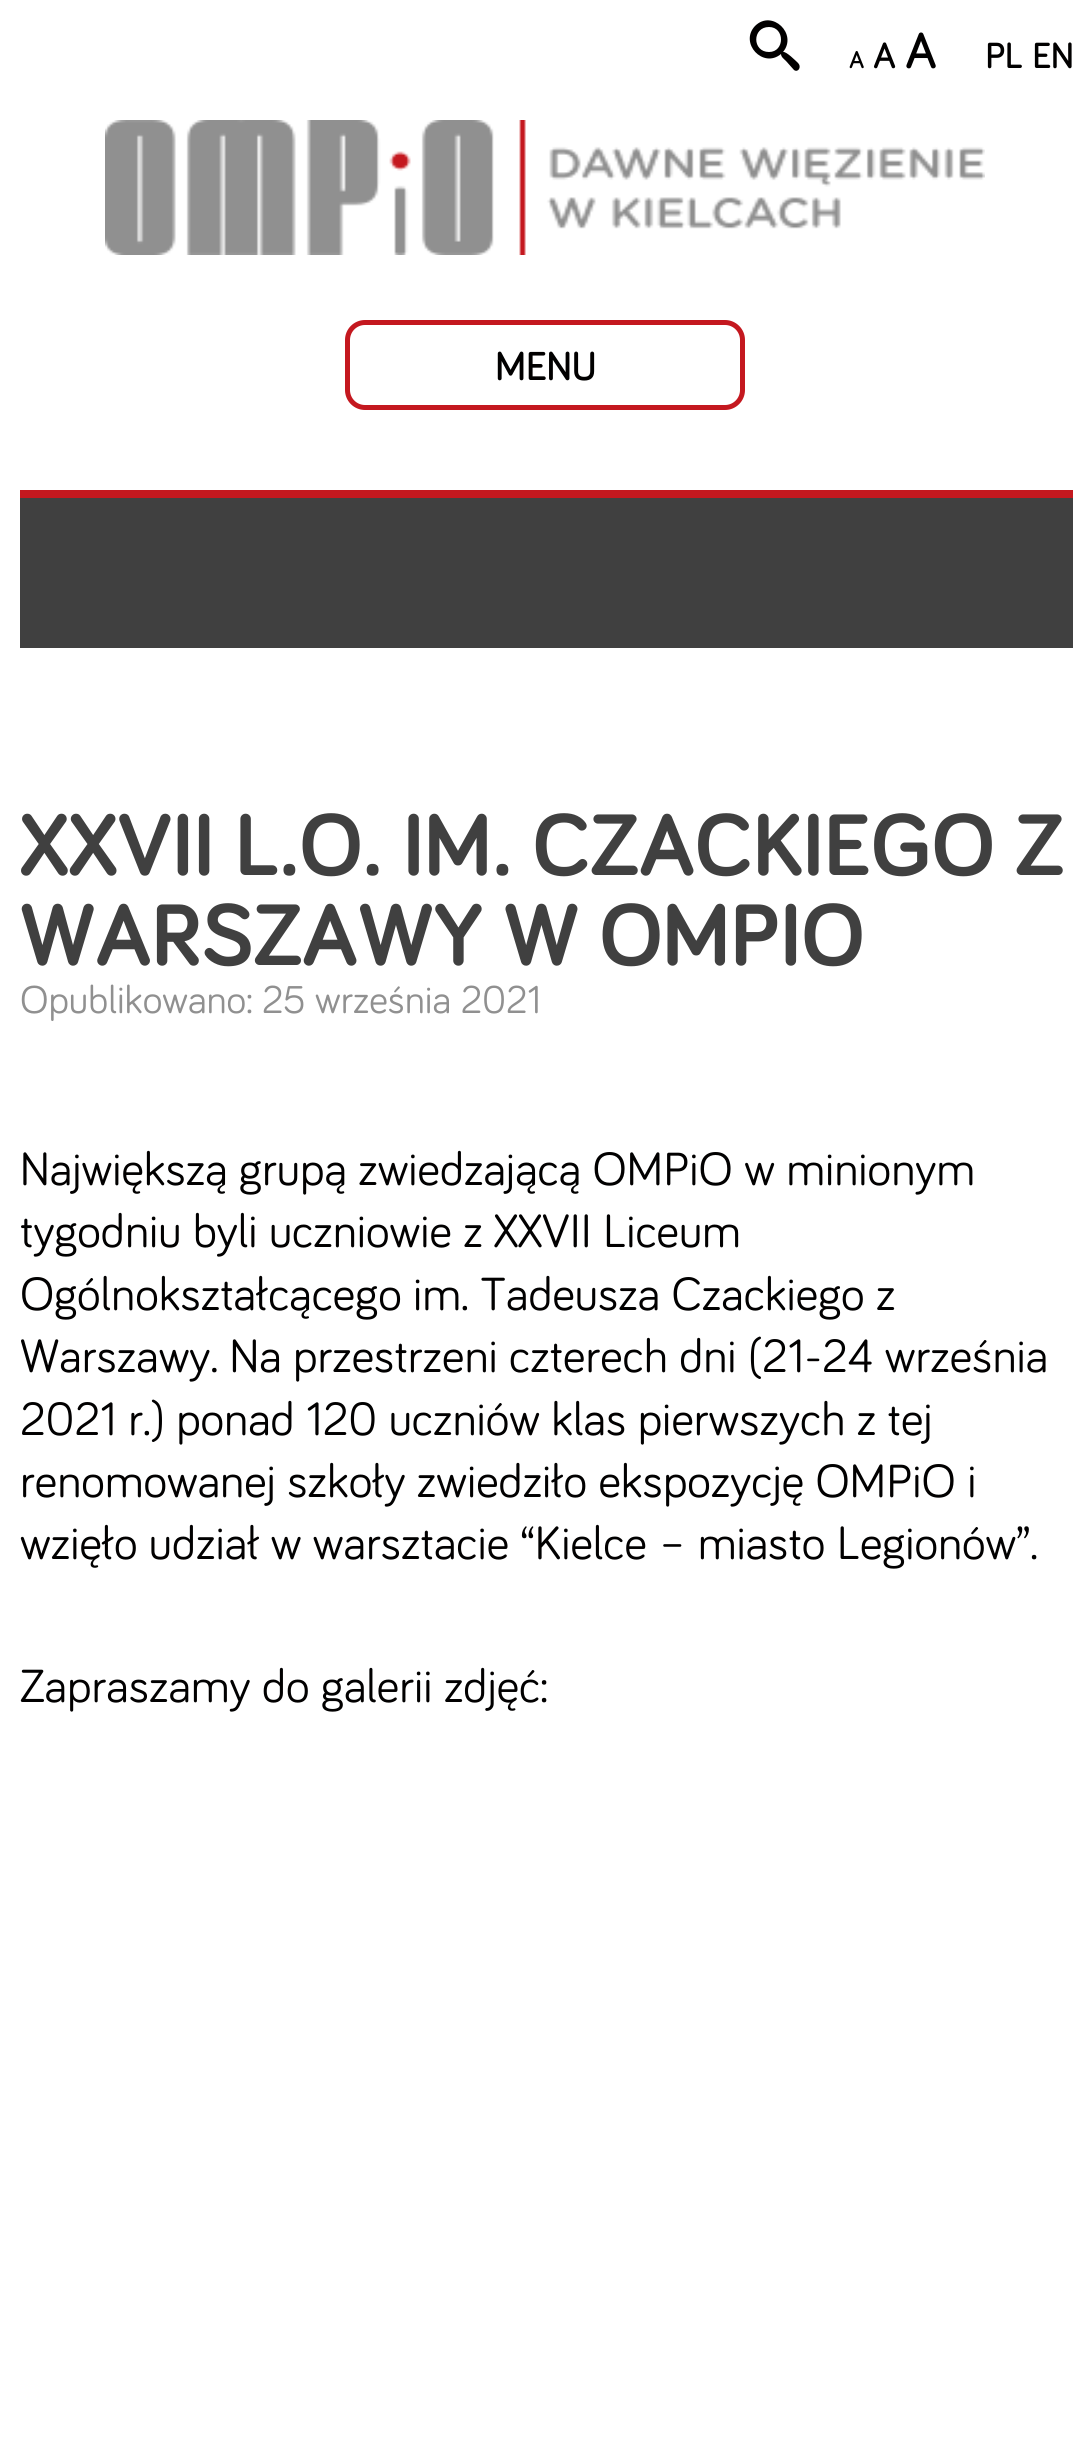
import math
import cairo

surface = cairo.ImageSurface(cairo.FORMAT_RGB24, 1091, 2464)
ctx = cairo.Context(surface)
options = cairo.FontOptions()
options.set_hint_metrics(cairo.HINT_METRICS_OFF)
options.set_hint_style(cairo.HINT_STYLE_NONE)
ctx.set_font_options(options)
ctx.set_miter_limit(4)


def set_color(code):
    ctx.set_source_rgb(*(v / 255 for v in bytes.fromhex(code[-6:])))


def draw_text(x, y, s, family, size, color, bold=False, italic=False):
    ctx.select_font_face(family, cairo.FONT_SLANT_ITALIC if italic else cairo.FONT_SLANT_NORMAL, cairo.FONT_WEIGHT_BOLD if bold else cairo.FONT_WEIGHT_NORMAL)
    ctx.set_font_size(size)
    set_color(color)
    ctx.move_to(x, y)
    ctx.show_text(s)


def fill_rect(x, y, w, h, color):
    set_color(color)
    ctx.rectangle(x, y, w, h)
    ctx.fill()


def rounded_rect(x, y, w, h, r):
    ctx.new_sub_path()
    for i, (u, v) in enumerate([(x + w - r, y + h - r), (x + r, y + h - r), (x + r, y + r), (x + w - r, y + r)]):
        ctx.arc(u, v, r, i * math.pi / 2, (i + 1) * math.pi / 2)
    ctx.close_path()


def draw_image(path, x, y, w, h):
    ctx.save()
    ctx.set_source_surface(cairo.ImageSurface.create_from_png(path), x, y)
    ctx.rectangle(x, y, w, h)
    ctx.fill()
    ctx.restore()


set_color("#ffffff")
ctx.paint()
set_color("#010000")
ctx.new_path()
ctx.move_to(798, 63)
ctx.curve_to(796, 61, 786, 51, 783, 52)
ctx.curve_to(798, 34, 772, 9, 755, 26)
ctx.curve_to(739, 43, 763, 69, 781, 54)
ctx.curve_to(781, 57, 784, 59, 786, 61)
ctx.line_to(794, 70)
ctx.curve_to(798, 73, 802, 67, 798, 63)
ctx.close_path()
ctx.move_to(769, 52)
ctx.curve_to(752, 52, 752, 27, 769, 27)
ctx.curve_to(785, 27, 785, 52, 769, 52)
ctx.close_path()
ctx.fill()
draw_text(849, 68, "A", "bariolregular", 24, "#010000", bold=True)
draw_text(873, 68, "A", "bariolregular", 36, "#010000", bold=True)
draw_text(905, 68, "A", "bariolregular", 50, "#010000", bold=True)
draw_text(985, 68, "PL", "bariolregular", 36, "#010000", bold=True)
draw_text(1032, 68, "EN", "bariolregular", 36, "#010000", bold=True)
draw_image("assets/img1.png", 105, 120, 880, 135)
rounded_rect(347.5, 322.5, 395, 85, 17.5)
set_color("#c4181f")
ctx.set_line_width(5)
ctx.stroke()
draw_text(495, 380, "MENU", "bariolregular", 40, "#010000", bold=True)
fill_rect(20, 490, 1053, 8, "#c4181f")
fill_rect(20, 498, 1053, 150, "#404040")
draw_text(20, 875, "XXVII L.O. IM. CZACKIEGO Z", "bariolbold", 90, "#404040", bold=True)
draw_text(20, 965, "WARSZAWY W OMPIO", "bariolbold", 90, "#404040", bold=True)
draw_text(20, 1013, "Opublikowano: 25 września 2021", "bariolregular", 40, "#909090")
draw_text(20, 1185, "Największą grupą zwiedzającą OMPiO w minionym", "bariolregular", 48, "#010000")
draw_text(20, 1247, "tygodniu byli uczniowie z XXVII Liceum", "bariolregular", 48, "#010000")
draw_text(20, 1310, "Ogólnokształcącego im. Tadeusza Czackiego z", "bariolregular", 48, "#010000")
draw_text(20, 1372, "Warszawy. Na przestrzeni czterech dni (21-24 września", "bariolregular", 48, "#010000")
draw_text(20, 1435, "2021 r.) ponad 120 uczniów klas pierwszych z tej", "bariolregular", 48, "#010000")
draw_text(20, 1497, "renomowanej szkoły zwiedziło ekspozycję OMPiO i", "bariolregular", 48, "#010000")
draw_text(20, 1559, "wzięło udział w warsztacie “Kielce – miasto Legionów”.", "bariolregular", 48, "#010000")
draw_text(20, 1702, "Zapraszamy do galerii zdjęć:", "bariolregular", 48, "#010000")
surface.write_to_png("output.png")
